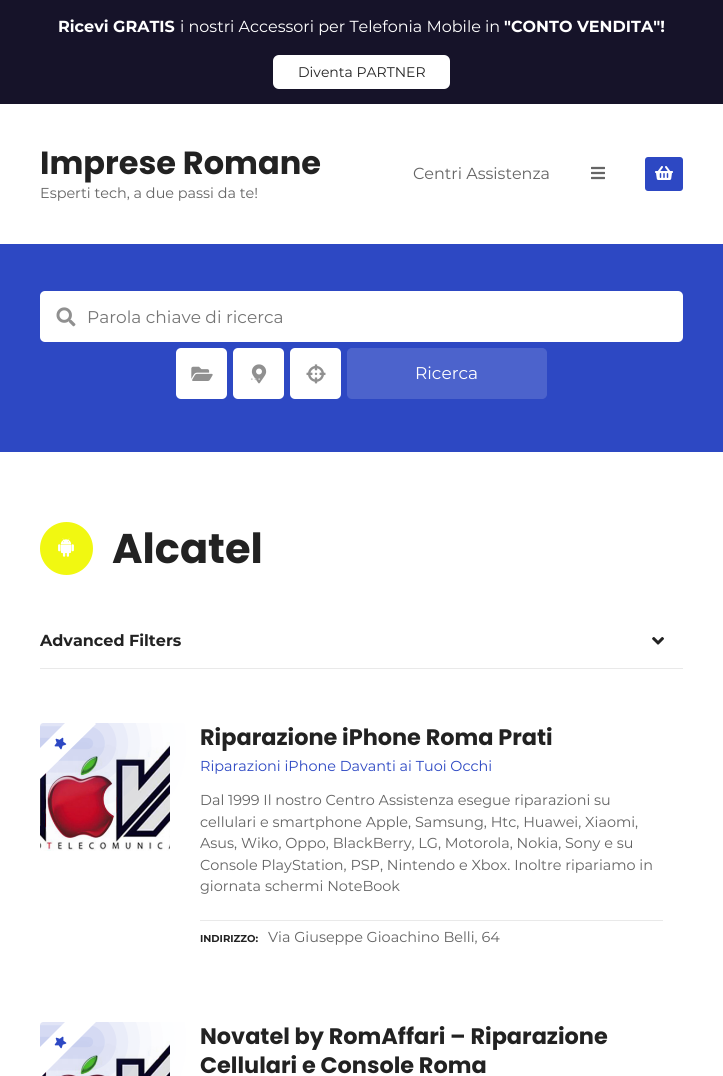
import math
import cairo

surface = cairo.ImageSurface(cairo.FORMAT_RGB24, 723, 1076)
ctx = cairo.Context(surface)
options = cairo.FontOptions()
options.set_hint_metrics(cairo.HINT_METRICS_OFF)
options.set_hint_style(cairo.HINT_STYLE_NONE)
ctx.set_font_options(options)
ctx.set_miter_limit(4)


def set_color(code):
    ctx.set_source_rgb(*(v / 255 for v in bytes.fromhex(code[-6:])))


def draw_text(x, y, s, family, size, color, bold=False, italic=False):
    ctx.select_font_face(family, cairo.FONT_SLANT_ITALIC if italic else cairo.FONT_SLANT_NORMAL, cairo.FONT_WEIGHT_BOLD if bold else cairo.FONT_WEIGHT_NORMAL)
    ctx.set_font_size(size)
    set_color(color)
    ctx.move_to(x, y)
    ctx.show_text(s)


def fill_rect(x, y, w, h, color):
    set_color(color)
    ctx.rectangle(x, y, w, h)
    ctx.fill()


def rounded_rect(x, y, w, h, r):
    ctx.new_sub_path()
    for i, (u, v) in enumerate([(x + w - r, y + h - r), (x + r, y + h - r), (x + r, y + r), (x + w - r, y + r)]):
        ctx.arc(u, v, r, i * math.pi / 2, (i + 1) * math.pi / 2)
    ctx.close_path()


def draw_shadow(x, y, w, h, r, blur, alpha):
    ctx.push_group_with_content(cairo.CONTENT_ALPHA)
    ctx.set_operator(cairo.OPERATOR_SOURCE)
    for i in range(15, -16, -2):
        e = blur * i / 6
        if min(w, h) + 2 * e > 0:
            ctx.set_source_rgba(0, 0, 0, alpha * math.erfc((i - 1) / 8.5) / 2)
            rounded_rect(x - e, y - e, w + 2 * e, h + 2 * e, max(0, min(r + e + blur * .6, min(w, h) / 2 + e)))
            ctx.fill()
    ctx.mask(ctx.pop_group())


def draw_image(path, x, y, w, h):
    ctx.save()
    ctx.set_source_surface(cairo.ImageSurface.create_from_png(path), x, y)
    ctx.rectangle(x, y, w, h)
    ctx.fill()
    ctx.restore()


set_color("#ffffff")
ctx.paint()
fill_rect(0, 0, 723, 104, "#161329")
draw_text(58, 32, "Ricevi GRATIS", "Montserrat", 16, "#ffffff", bold=True)
draw_text(180, 32, "i nostri Accessori per Telefonia Mobile in", "Montserrat", 16, "#ffffff")
draw_text(504, 32, "\"CONTO VENDITA\"!", "Montserrat", 16, "#ffffff", bold=True)
rounded_rect(273, 55, 177, 34, 6)
ctx.fill()
draw_text(298, 77, "Diventa PARTNER", "Montserrat", 14, "#222222")
draw_text(40, 174, "Imprese Romane", "Poppins", 32, "#222222", bold=True)
draw_text(40, 198, "Esperti tech, a due passi da te!", "Montserrat", 14.4, "#646464")
draw_text(413, 179, "Centri Assistenza", "Montserrat", 16, "#646464")
draw_image("assets/img1.png", 591, 166, 14, 14)
set_color("#2d48c3")
rounded_rect(645, 157, 38, 34, 3)
ctx.fill()
draw_image("assets/img2.png", 655, 166, 18, 14)
fill_rect(0, 244, 723, 208, "#2d48c3")
set_color("#ffffff")
rounded_rect(40, 291, 643, 51, 5)
ctx.fill()
draw_image("assets/img3.png", 56, 307, 20, 20)
draw_text(87, 323, "Parola chiave di ricerca", "Montserrat", 17, "#757575")
set_color("#ffffff")
rounded_rect(176, 348, 51, 51, 5)
ctx.fill()
draw_image("assets/img4.png", 191, 366, 22, 15)
rounded_rect(233, 348, 51, 51, 5)
ctx.fill()
draw_image("assets/img5.png", 251, 364, 16, 20)
draw_text(250, 380, "…", "Montserrat", 17, "#c7c7c7")
set_color("#ffffff")
rounded_rect(290, 348, 51, 51, 5)
ctx.fill()
draw_image("assets/img6.png", 306, 364, 20, 20)
set_color("#4c63cc")
rounded_rect(347.5, 348.5, 199, 50, 4.5)
ctx.fill_preserve()
ctx.set_line_width(1)
ctx.stroke()
draw_text(415, 379, "Ricerca", "Montserrat", 17, "#ffffff")
set_color("#f1f811")
ctx.new_path()
ctx.arc(66.5, 548.5, 26.5, 0, 2 * math.pi)
ctx.fill()
draw_image("assets/img7.png", 58, 538, 16, 19)
draw_text(112, 563, "Alcatel", "Poppins", 41.5, "#222222", bold=True)
fill_rect(40, 668, 643, 1, "#e9e9e9")
draw_text(40, 646, "Advanced Filters", "Montserrat", 16, "#222222", bold=True)
draw_image("assets/img8.png", 652, 637, 12, 8)
draw_image("assets/img10.png", 40, 742, 130, 109)
ctx.save()
rounded_rect(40, 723, 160, 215, 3)
ctx.clip()
set_color("#2d48c3")
draw_shadow(21, 732, 78, 23, 0, 35, 0.4)
ctx.restore()
set_color("#ffffff")
ctx.new_path()
ctx.move_to(95, 723)
ctx.line_to(96, 724)
ctx.line_to(40, 779)
ctx.line_to(40, 748)
ctx.line_to(65, 723)
ctx.close_path()
ctx.fill()
draw_image("assets/img9.png", 54, 737, 13, 13)
draw_text(200, 745, "Riparazione iPhone Roma Prati", "Poppins", 22.4, "#222222", bold=True)
draw_text(200, 771, "Riparazioni iPhone Davanti ai Tuoi Occhi", "Montserrat", 14.4, "#2d48c3")
draw_text(200, 805, "Dal 1999 Il nostro Centro Assistenza esegue riparazioni su", "Montserrat", 14.4, "#646464")
draw_text(200, 827, "cellulari e smartphone Apple, Samsung, Htc, Huawei, Xiaomi,", "Montserrat", 14.4, "#646464")
draw_text(200, 848, "Asus, Wiko, Oppo, BlackBerry, LG, Motorola, Nokia, Sony e su", "Montserrat", 14.4, "#646464")
draw_text(200, 870, "Console PlayStation, PSP, Nintendo e Xbox. Inoltre ripariamo in", "Montserrat", 14.4, "#646464")
draw_text(200, 891, "giornata schermi NoteBook", "Montserrat", 14.4, "#646464")
fill_rect(200, 920, 463, 1, "#e9e9e9")
draw_text(200, 942, "INDIRIZZO:", "Montserrat", 10, "#222222", bold=True)
draw_text(268, 942, "Via Giuseppe Gioachino Belli, 64", "Montserrat", 14.4, "#646464")
draw_image("assets/img12.png", 40, 1041, 130, 35)
ctx.save()
rounded_rect(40, 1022, 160, 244, 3)
ctx.clip()
set_color("#2d48c3")
draw_shadow(21, 1031, 78, 22, 0, 35, 0.4)
ctx.restore()
set_color("#ffffff")
ctx.new_path()
ctx.move_to(65, 1022)
ctx.line_to(96, 1022)
ctx.line_to(40, 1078)
ctx.line_to(40, 1047)
ctx.close_path()
ctx.fill()
draw_image("assets/img11.png", 54, 1036, 13, 13)
draw_text(200, 1044, "Novatel by RomAffari – Riparazione", "Poppins", 22.4, "#222222", bold=True)
draw_text(200, 1073, "Cellulari e Console Roma", "Poppins", 22.4, "#222222", bold=True)
surface.write_to_png("output.png")
